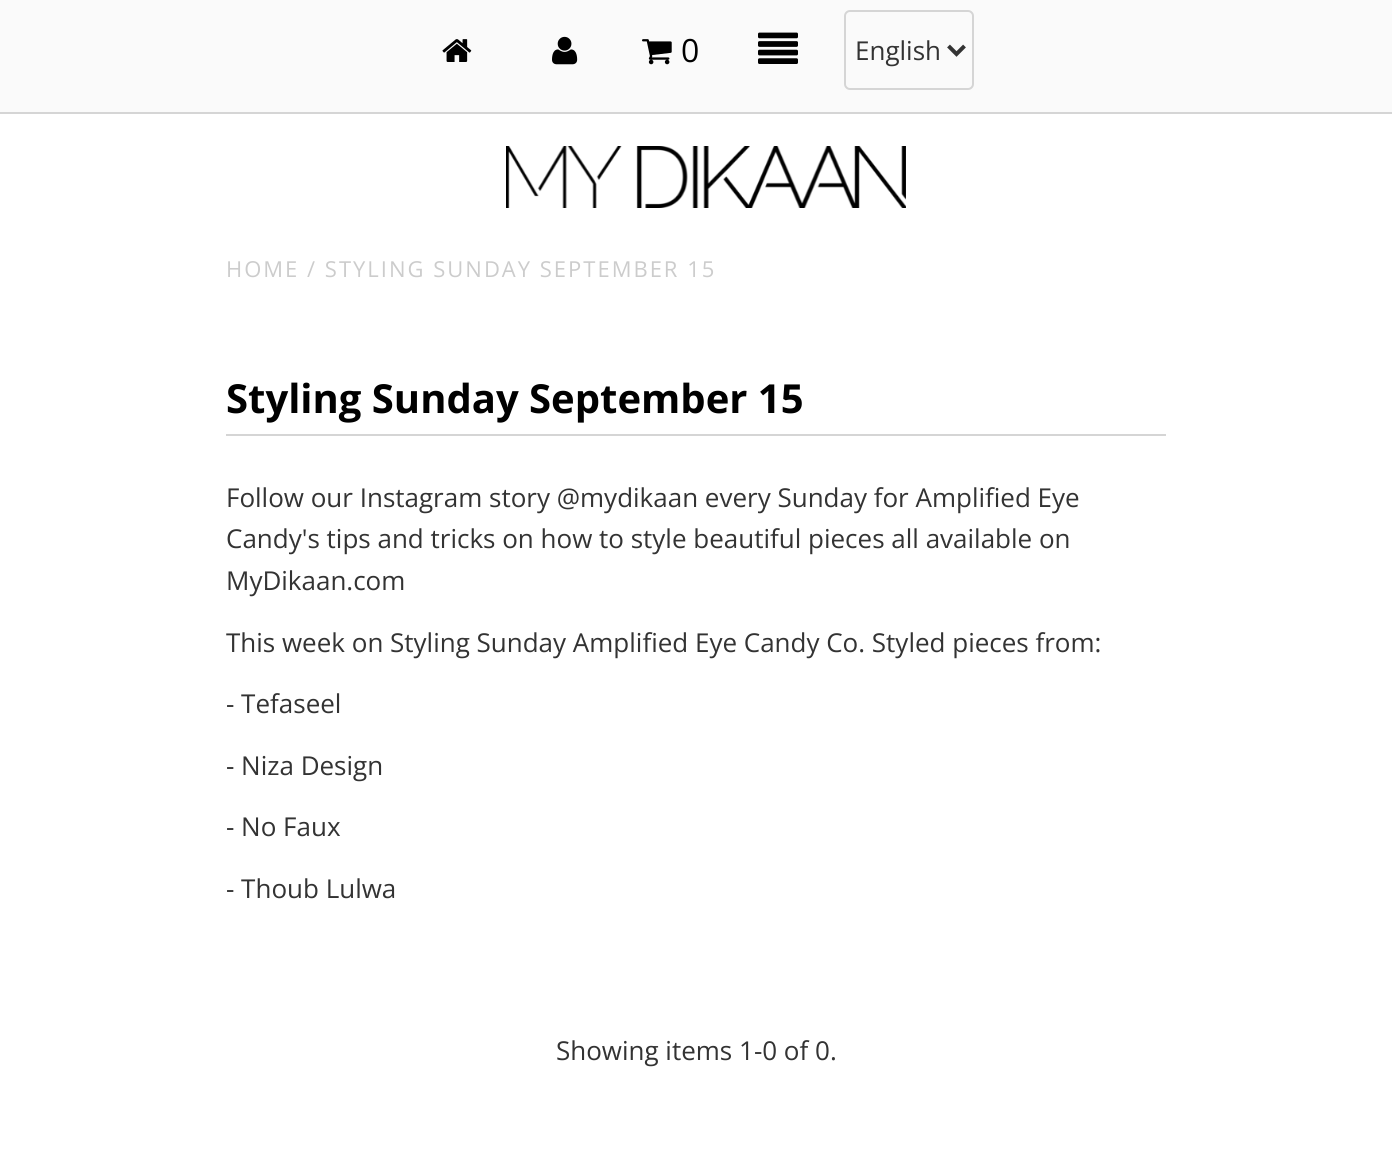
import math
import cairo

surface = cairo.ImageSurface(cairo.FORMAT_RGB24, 1392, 1158)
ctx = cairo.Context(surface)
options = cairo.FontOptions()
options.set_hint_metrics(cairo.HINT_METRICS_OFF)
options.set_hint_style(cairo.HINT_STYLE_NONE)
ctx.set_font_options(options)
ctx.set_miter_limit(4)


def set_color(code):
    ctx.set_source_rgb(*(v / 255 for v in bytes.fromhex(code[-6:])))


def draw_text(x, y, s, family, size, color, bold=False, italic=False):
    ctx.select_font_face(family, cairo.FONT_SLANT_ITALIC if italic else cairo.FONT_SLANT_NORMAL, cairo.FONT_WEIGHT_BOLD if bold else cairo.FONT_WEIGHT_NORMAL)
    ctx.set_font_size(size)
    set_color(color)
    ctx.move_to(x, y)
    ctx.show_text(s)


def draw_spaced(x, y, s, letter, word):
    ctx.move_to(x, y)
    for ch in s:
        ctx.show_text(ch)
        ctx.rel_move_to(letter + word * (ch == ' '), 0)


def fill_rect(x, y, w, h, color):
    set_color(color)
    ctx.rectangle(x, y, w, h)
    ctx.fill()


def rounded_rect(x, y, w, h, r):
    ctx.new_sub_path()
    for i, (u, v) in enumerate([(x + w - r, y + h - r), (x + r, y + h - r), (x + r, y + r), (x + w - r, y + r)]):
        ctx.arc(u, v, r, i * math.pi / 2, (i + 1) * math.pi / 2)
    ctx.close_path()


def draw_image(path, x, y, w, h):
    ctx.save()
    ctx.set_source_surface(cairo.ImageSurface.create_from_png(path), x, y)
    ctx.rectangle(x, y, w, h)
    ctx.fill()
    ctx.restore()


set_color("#ffffff")
ctx.paint()
fill_rect(0, 0, 1392, 112, "#fafafa")
fill_rect(0, 112, 1392, 2, "#d5d5d5")
draw_image("assets/img1.png", 442, 39, 30, 23)
draw_image("assets/img2.png", 552, 36, 26, 29)
draw_image("assets/img3.png", 642, 39, 30, 26)
draw_text(681, 62, "0", "Open Sans", 32, "#000000")
draw_image("assets/img4.png", 758, 32, 40, 32)
rounded_rect(845, 11, 128, 78, 5)
set_color("#d5d5d5")
ctx.stroke()
ctx.new_path()
ctx.move_to(948.5, 46)
ctx.line_to(956.5, 54)
ctx.line_to(964.5, 46)
set_color("#333333")
ctx.set_line_width(4)
ctx.stroke()
draw_text(855, 60, "English", "Open Sans", 26, "#333333")
draw_image("assets/img5.png", 506, 146, 400, 62)
ctx.set_font_size(22)
set_color("#cccccc")
draw_spaced(226, 277, "HOME / STYLING SUNDAY SEPTEMBER 15", 2, 0)
fill_rect(226, 434, 940, 2, "#d5d5d5")
draw_text(226, 413, "Styling Sunday September 15", "Open Sans", 40, "#000000", bold=True)
draw_text(226, 507, "Follow our Instagram story @mydikaan every Sunday for Amplified Eye", "Open Sans", 26, "#333333")
draw_text(226, 548, "Candy's tips and tricks on how to style beautiful pieces all available on", "Open Sans", 26, "#333333")
draw_text(226, 590, "MyDikaan.com", "Open Sans", 26, "#333333")
draw_text(226, 652, "This week on Styling Sunday Amplified Eye Candy Co. Styled pieces from:", "Open Sans", 26, "#333333")
draw_text(226, 713, "- Tefaseel", "Open Sans", 26, "#333333")
draw_text(226, 775, "- Niza Design", "Open Sans", 26, "#333333")
draw_text(226, 836, "- No Faux", "Open Sans", 26, "#333333")
draw_text(226, 898, "- Thoub Lulwa", "Open Sans", 26, "#333333")
draw_text(556, 1060, "Showing items 1-0 of 0.", "Open Sans", 26, "#333333")
surface.write_to_png("output.png")
